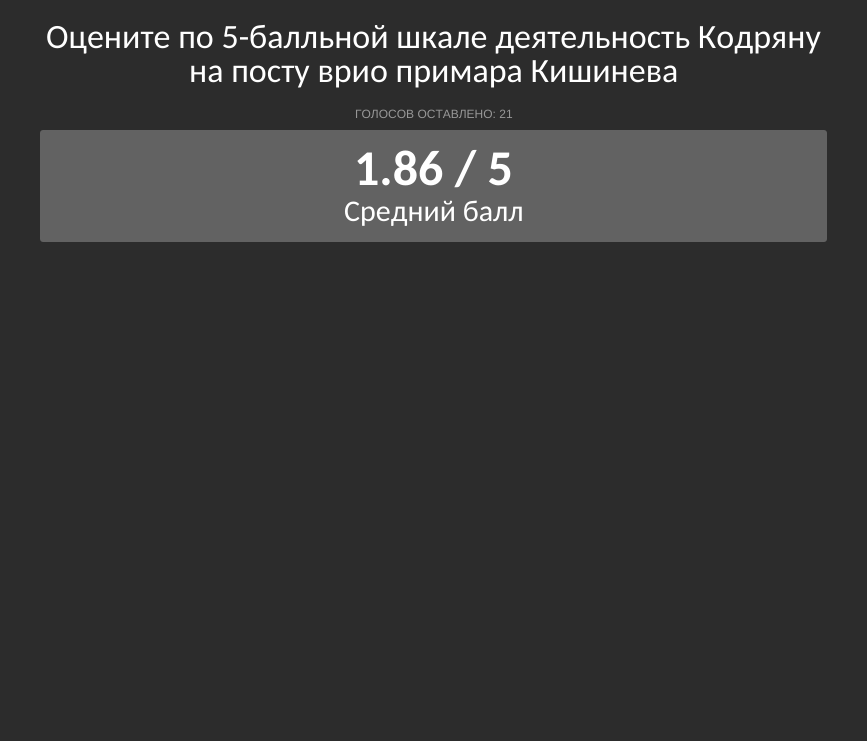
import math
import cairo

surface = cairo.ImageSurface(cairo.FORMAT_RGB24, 867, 741)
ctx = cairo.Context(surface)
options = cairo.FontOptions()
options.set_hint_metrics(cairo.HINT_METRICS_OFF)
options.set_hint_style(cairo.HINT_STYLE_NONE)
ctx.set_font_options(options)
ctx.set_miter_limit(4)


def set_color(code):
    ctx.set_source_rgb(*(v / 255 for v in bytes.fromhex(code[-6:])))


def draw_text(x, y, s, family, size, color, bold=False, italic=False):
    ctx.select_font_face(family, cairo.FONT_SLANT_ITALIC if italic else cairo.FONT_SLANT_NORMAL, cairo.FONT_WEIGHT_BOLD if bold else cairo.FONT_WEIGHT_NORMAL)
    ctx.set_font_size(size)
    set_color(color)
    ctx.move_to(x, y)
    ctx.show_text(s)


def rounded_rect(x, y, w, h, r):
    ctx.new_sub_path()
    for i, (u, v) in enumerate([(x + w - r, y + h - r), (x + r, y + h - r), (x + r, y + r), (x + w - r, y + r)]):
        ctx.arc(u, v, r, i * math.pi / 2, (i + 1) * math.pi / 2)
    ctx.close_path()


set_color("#2c2c2c")
ctx.paint()
draw_text(46, 48, "Оцените по 5-балльной шкале деятельность Кодряну", "Carlito", 34, "#ffffff")
draw_text(189, 82, "на посту врио примара Кишинева", "Carlito", 34, "#ffffff")
draw_text(355, 118, "ГОЛОСОВ ОСТАВЛЕНО: 21", "Liberation Sans", 12, "#979797")
set_color("#626262")
rounded_rect(40, 130, 787, 112, 3)
ctx.fill()
draw_text(354, 185, "1.86 / 5", "Carlito", 50, "#ffffff", bold=True)
draw_text(344, 221, "Средний балл", "Carlito", 30, "#ffffff")
surface.write_to_png("output.png")
